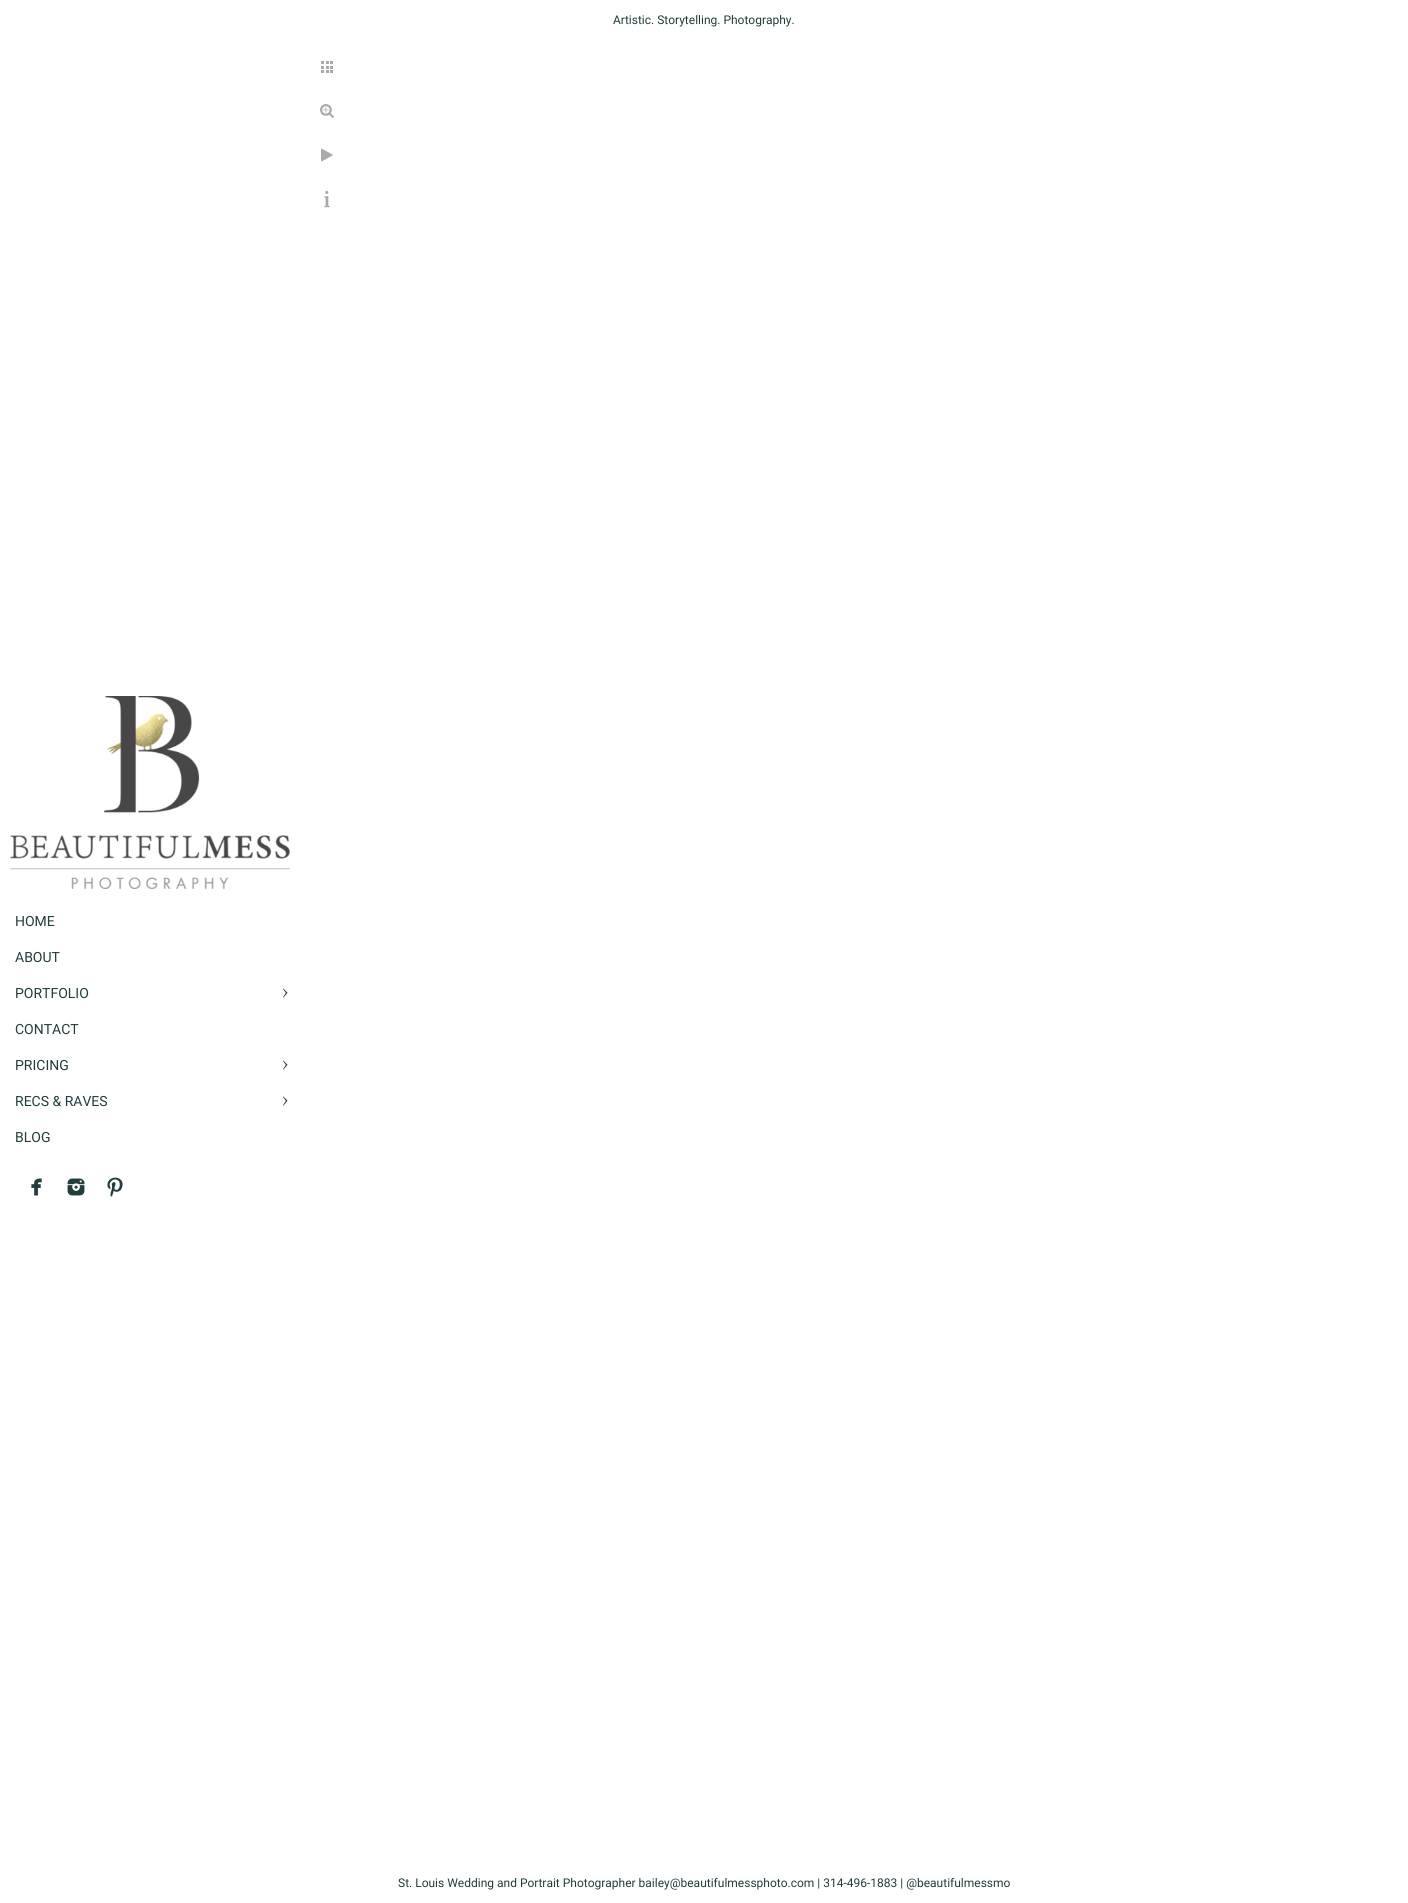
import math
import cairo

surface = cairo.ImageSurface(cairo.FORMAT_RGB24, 1408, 1903)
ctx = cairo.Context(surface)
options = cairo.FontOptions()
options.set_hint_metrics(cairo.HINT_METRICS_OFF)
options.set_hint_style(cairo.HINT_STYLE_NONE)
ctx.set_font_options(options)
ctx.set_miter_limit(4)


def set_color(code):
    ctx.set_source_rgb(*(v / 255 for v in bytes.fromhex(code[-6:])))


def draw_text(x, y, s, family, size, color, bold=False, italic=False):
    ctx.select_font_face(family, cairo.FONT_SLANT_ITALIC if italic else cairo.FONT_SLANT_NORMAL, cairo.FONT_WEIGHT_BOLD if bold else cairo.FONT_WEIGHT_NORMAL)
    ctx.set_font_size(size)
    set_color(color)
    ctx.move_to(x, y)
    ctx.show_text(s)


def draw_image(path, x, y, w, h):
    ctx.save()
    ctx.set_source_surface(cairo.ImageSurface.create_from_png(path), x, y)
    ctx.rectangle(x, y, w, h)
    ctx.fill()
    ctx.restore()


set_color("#ffffff")
ctx.paint()
draw_text(613, 24, "Artistic. Storytelling. Photography.", "Roboto", 12, "#223d3c")
draw_image("assets/img1.png", 321, 61, 12, 12)
draw_image("assets/img2.png", 320, 104, 14, 14)
draw_image("assets/img3.png", 321, 148, 12, 14)
draw_image("assets/img4.png", 324, 190, 6, 18)
draw_image("assets/img5.png", 10, 696, 280, 193)
draw_text(15, 926, "HOME", "Roboto", 14, "#223d3c")
draw_text(15, 962, "ABOUT", "Roboto", 14, "#223d3c")
draw_text(15, 998, "PORTFOLIO", "Roboto", 14, "#223d3c")
draw_image("assets/img6.png", 282, 988, 6, 10)
draw_text(15, 1034, "CONTACT", "Roboto", 14, "#223d3c")
draw_text(15, 1070, "PRICING", "Roboto", 14, "#223d3c")
draw_image("assets/img6.png", 282, 1060, 6, 10)
draw_text(15, 1106, "RECS & RAVES", "Roboto", 14, "#223d3c")
draw_image("assets/img6.png", 282, 1096, 6, 10)
draw_text(15, 1142, "BLOG", "Roboto", 14, "#223d3c")
draw_image("assets/img7.png", 31, 1178, 11, 18)
draw_image("assets/img8.png", 67, 1178, 18, 18)
draw_image("assets/img9.png", 107, 1177, 16, 20)
draw_text(398, 1887, "St. Louis Wedding and Portrait Photographer bailey@beautifulmessphoto.com | 314-496-1883 | @beautifulmessmo", "Roboto", 12, "#223d3c")
surface.write_to_png("output.png")
